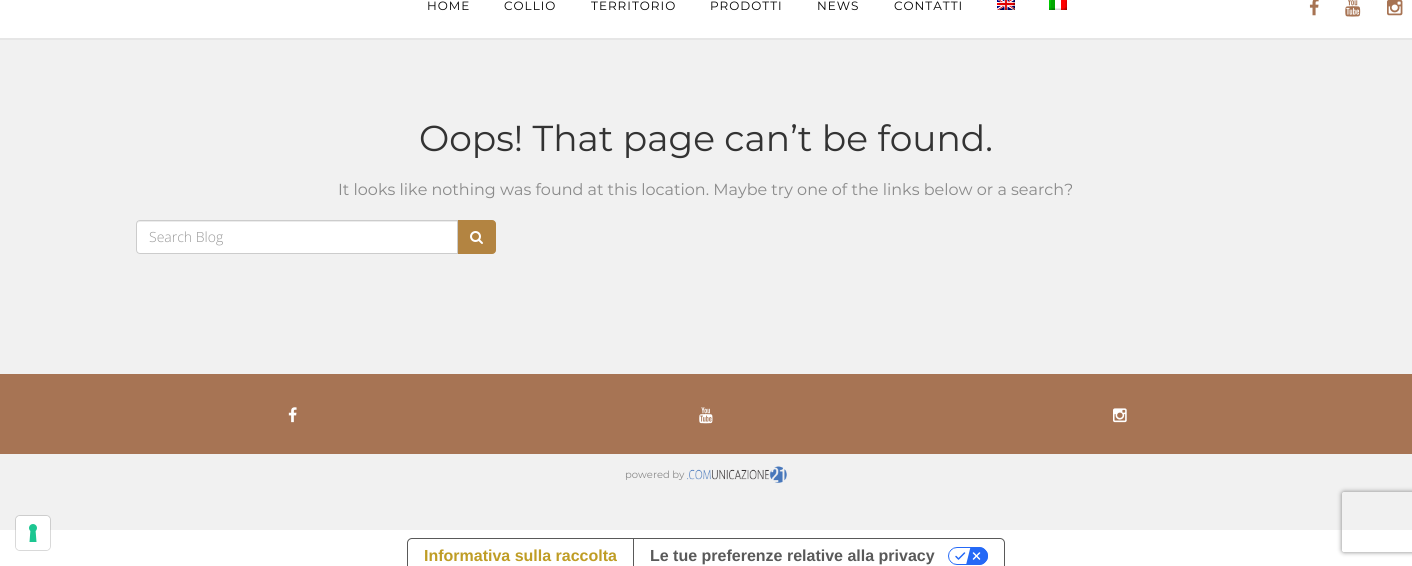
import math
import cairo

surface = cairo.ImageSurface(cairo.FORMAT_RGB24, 1412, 566)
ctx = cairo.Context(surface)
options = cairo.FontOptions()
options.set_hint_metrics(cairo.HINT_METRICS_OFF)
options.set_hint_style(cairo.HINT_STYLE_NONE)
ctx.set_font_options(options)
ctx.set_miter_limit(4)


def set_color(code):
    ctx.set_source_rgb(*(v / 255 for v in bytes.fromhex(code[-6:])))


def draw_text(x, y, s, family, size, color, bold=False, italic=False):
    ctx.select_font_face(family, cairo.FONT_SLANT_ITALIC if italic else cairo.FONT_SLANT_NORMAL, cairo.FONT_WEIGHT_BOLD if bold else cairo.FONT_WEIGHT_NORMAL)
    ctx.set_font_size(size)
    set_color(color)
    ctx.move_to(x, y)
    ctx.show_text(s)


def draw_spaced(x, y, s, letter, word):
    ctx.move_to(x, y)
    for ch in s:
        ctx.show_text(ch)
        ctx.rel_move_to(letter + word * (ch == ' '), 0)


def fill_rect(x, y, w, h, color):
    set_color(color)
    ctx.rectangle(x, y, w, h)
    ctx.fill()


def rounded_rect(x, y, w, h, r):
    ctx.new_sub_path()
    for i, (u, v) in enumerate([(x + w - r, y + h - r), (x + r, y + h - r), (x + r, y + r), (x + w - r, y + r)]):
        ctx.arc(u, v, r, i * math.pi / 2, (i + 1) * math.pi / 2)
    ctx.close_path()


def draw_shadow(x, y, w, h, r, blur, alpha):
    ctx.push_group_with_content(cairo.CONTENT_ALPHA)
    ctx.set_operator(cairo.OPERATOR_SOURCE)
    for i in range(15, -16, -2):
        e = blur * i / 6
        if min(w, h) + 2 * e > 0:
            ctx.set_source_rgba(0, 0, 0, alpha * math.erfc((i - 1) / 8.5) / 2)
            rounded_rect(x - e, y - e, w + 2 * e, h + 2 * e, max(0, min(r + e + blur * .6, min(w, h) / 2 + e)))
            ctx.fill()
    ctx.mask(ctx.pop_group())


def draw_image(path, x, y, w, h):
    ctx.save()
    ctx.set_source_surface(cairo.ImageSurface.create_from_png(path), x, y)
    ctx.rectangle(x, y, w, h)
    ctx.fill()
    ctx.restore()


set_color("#ffffff")
ctx.paint()
fill_rect(0, 38, 1412, 2, "#e6e6e6")
ctx.select_font_face("Montserrat")
ctx.set_font_size(12)
set_color("#000000")
draw_spaced(427, 10, "HOME", 1, 0)
draw_spaced(504, 10, "COLLIO", 1, 0)
draw_spaced(591, 10, "TERRITORIO", 1, 0)
draw_spaced(710, 10, "PRODOTTI", 1, 0)
draw_spaced(817, 10, "NEWS", 1, 0)
draw_spaced(894, 10, "CONTATTI", 1, 0)
draw_image("assets/img1.png", 997, 0, 18, 10)
draw_image("assets/img2.png", 1049, 0, 18, 10)
draw_image("assets/img3.png", 1309, 0, 10, 16)
draw_image("assets/img4.png", 1345, 0, 16, 17)
draw_image("assets/img5.png", 1387, 0, 16, 16)
fill_rect(0, 40, 1412, 334, "#f1f1f1")
draw_text(419, 151, "Oops! That page can’t be found.", "Montserrat", 36, "#333333")
draw_text(338, 195, "It looks like nothing was found at this location. Maybe try one of the links below or a search?", "Montserrat", 16, "#8a8a8a")
set_color("#b38441")
ctx.new_path()
ctx.move_to(457.5, 220.5)
ctx.line_to(492, 220.5)
ctx.curve_to(494, 220.5, 495.5, 222, 495.5, 224)
ctx.line_to(495.5, 250)
ctx.curve_to(495.5, 252, 494, 253.5, 492, 253.5)
ctx.line_to(457.5, 253.5)
ctx.close_path()
ctx.fill_preserve()
ctx.set_line_width(1)
ctx.stroke()
set_color("#ffffff")
ctx.new_path()
ctx.move_to(140, 220)
ctx.line_to(458, 220)
ctx.line_to(458, 254)
ctx.line_to(140, 254)
ctx.curve_to(138, 254, 136, 252, 136, 250)
ctx.line_to(136, 224)
ctx.curve_to(136, 222, 138, 220, 140, 220)
ctx.close_path()
ctx.fill()
set_color("#ececec")
ctx.new_path()
ctx.move_to(140, 222)
ctx.line_to(457, 222)
ctx.line_to(457, 221)
ctx.line_to(140, 221)
ctx.curve_to(138, 221, 137, 223, 137, 225)
ctx.curve_to(137, 223, 138, 222, 140, 222)
ctx.close_path()
ctx.fill()
ctx.new_path()
ctx.move_to(140, 220.5)
ctx.line_to(457.5, 220.5)
ctx.line_to(457.5, 253.5)
ctx.line_to(140, 253.5)
ctx.curve_to(138, 253.5, 136.5, 252, 136.5, 250)
ctx.line_to(136.5, 224)
ctx.curve_to(136.5, 222, 138, 220.5, 140, 220.5)
ctx.close_path()
set_color("#cccccc")
ctx.stroke()
draw_text(149, 242, "Search Blog", "Open Sans Light", 14, "#999999")
draw_image("assets/img6.png", 470, 231, 13, 13)
fill_rect(0, 374, 1412, 80, "#a77454")
draw_image("assets/img7.png", 288, 407, 9, 16)
draw_image("assets/img8.png", 699, 407, 14, 17)
draw_image("assets/img9.png", 1113, 408, 14, 15)
fill_rect(0, 454, 1412, 76, "#f1f1f1")
draw_text(625, 478, "powered by", "Montserrat", 10, "#8a8a8a")
draw_image("assets/img10.png", 687, 466, 100, 17)
rounded_rect(15.5, 515.5, 35, 35, 4.5)
ctx.set_source_rgba(0, 0, 0, 0.15)
ctx.stroke()
set_color("#ffffff")
rounded_rect(16, 516, 34, 34, 4)
ctx.fill()
draw_image("assets/img11.png", 29, 524, 8, 18)
ctx.save()
ctx.set_fill_rule(cairo.FILL_RULE_EVEN_ODD)
ctx.new_path()
ctx.move_to(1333, 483)
ctx.line_to(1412, 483)
ctx.line_to(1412, 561)
ctx.line_to(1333, 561)
ctx.close_path()
ctx.move_to(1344, 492)
ctx.line_to(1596, 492)
ctx.curve_to(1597, 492, 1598, 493, 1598, 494)
ctx.line_to(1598, 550)
ctx.curve_to(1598, 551, 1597, 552, 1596, 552)
ctx.line_to(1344, 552)
ctx.curve_to(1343, 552, 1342, 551, 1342, 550)
ctx.line_to(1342, 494)
ctx.curve_to(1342, 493, 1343, 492, 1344, 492)
ctx.close_path()
ctx.clip()
set_color("#808080")
draw_shadow(1342, 492, 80, 60, 2, 2.5, 1)
ctx.restore()
rounded_rect(407.5, 538.5, 597, 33, 4.5)
set_color("#595959")
ctx.stroke()
draw_text(424, 561, "Informativa sulla raccolta", "Liberation Sans", 16, "#bf9d25", bold=True)
fill_rect(633, 539, 1, 27, "#595959")
draw_text(650, 561, "Le tue preferenze relative alla privacy", "Liberation Sans", 16, "#595959", bold=True)
draw_image("assets/img12.png", 948, 547, 40, 18)
surface.write_to_png("output.png")
